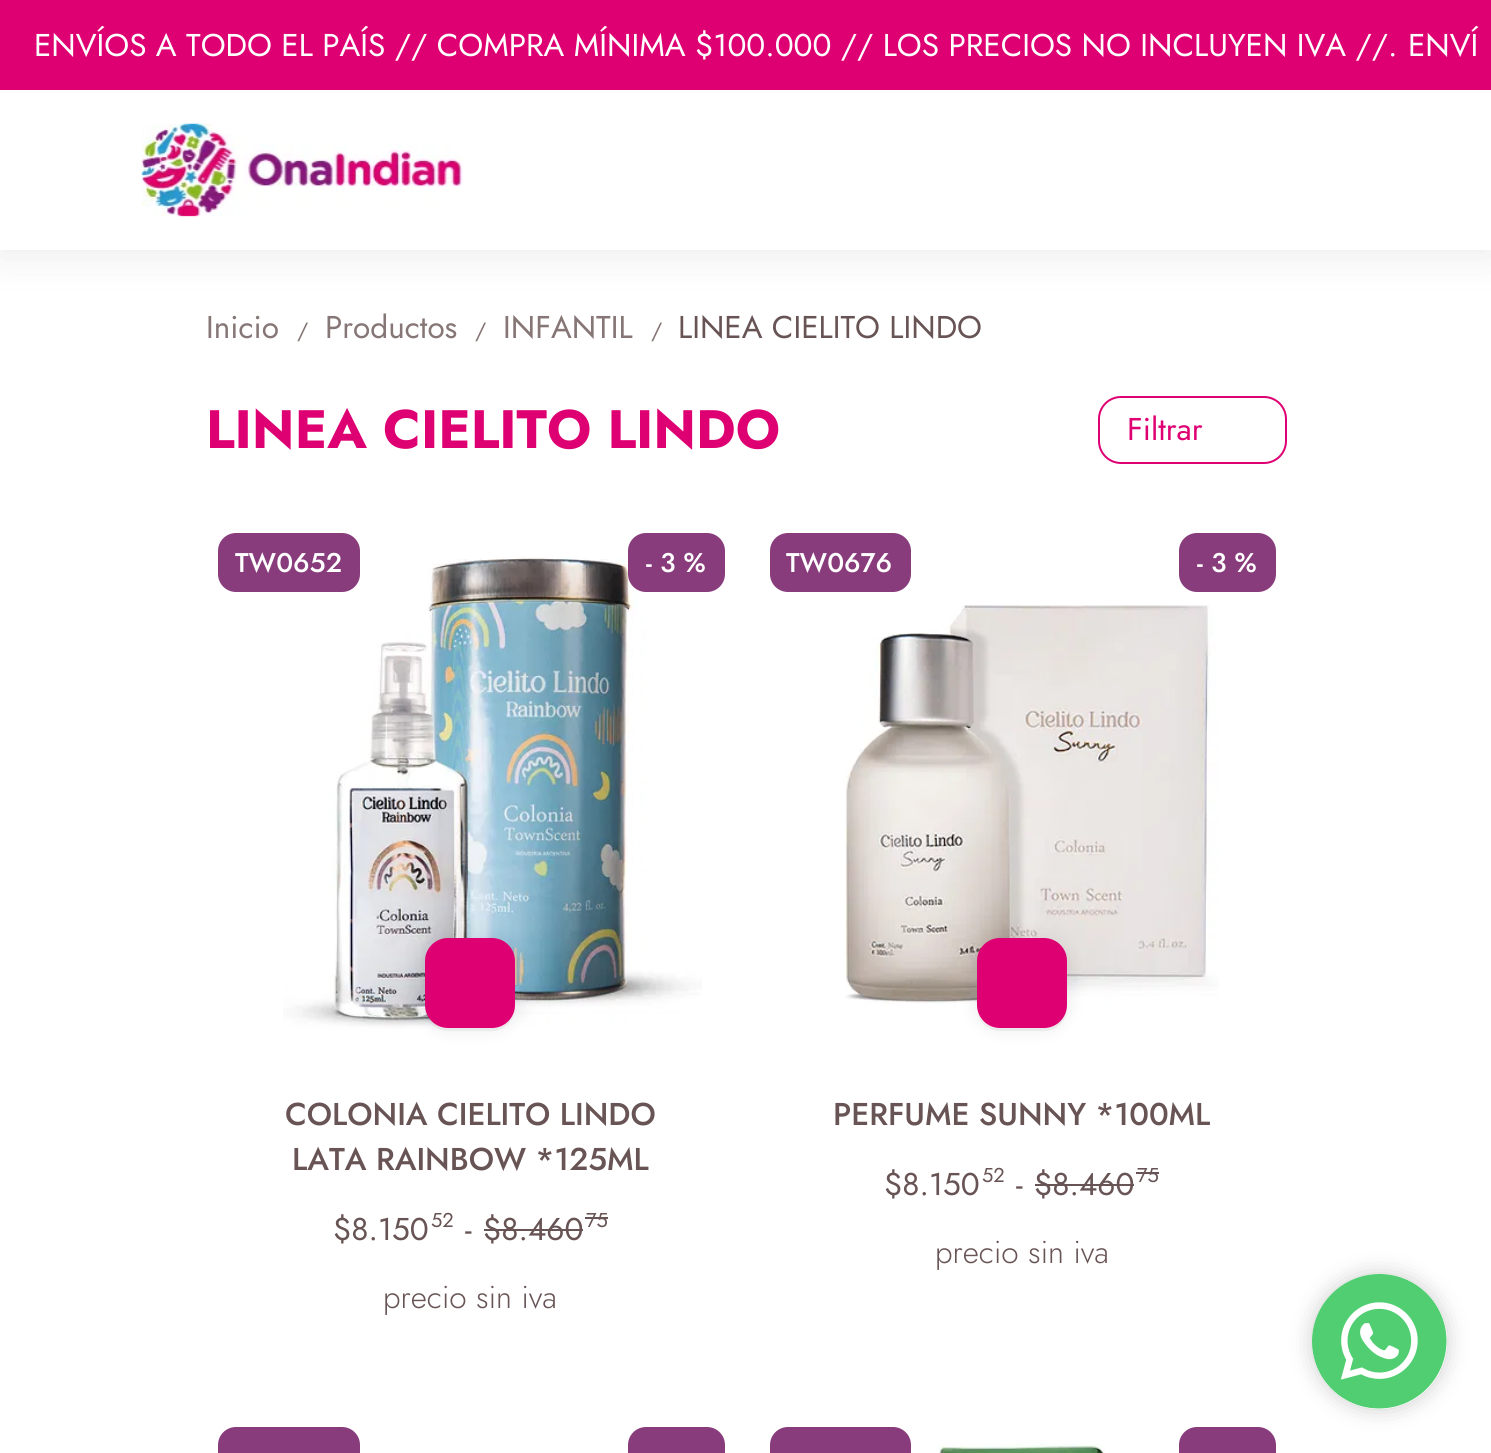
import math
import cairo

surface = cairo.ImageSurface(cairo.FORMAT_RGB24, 1491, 1453)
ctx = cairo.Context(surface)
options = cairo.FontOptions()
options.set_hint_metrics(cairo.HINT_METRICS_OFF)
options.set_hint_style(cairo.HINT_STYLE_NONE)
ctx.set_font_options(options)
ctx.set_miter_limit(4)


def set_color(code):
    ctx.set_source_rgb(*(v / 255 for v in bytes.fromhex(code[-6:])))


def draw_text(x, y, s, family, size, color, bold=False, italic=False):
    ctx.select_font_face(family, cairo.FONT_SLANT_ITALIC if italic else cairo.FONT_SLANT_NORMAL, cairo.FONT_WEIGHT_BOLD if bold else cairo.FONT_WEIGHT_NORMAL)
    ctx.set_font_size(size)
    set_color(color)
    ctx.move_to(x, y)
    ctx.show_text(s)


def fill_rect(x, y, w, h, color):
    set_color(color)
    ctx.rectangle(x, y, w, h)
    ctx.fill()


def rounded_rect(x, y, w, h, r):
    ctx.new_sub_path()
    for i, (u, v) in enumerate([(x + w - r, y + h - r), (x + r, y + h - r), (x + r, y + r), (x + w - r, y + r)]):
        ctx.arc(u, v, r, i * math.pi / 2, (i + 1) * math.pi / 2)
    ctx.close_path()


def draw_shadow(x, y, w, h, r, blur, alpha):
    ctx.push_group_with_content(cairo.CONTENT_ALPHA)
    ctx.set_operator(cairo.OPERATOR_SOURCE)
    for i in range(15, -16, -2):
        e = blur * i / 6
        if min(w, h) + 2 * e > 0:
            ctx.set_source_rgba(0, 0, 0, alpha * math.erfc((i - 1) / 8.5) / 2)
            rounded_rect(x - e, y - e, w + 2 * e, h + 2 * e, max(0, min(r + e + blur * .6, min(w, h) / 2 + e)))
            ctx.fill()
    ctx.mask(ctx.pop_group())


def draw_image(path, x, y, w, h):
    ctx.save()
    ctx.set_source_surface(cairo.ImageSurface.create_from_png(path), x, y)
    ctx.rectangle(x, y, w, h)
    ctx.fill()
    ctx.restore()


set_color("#ffffff")
ctx.paint()
set_color("#000000")
draw_shadow(0, 0, 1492, 250, 0, 22.5, 0.1)
fill_rect(0, 90, 1491, 160, "#ffffff")
fill_rect(0, 0, 1491, 90, "#de0072")
draw_text(34, 56, "ENVÍOS A TODO EL PAÍS // COMPRA MÍNIMA $100.000 // LOS PRECIOS NO INCLUYEN IVA //.", "Jost", 31.5, "#ffffff")
draw_text(1408, 56, "ENVÍ", "Jost", 31.5, "#ffffff")
draw_image("assets/img1.png", 141, 123, 322, 94)
draw_text(206, 338, "Inicio", "Jost", 31.5, "#867676")
draw_text(297, 338, "/", "Jost", 22, "#867676")
draw_text(325, 338, "Productos", "Jost", 31.5, "#867676")
draw_text(475, 338, "/", "Jost", 22, "#867676")
draw_text(503, 338, "INFANTIL", "Jost", 31.5, "#867676")
draw_text(651, 338, "/", "Jost", 22, "#867676")
draw_text(678, 338, "LINEA CIELITO LINDO", "Jost", 31.5, "#685454")
draw_text(206, 448, "LINEA CIELITO LINDO", "Jost", 54, "#de0072", bold=True)
rounded_rect(1099, 397, 187, 66, 22)
ctx.stroke()
draw_text(1127, 440, "Filtrar", "Jost", 31.5, "#de0072")
draw_image("assets/img2.png", 283, 556, 419, 473)
set_color("#893c7c")
rounded_rect(218, 533, 142, 59, 18)
ctx.fill()
draw_text(235, 572, "TW0652", "Jost Medium", 27, "#ffffff")
set_color("#893c7c")
rounded_rect(628, 533, 97, 59, 18)
ctx.fill()
draw_text(646, 572, "- 3 %", "Jost Medium", 27, "#ffffff")
set_color("#11111a")
draw_shadow(425, 938, 90, 90, 23, 9, 0.1)
ctx.set_source_rgba(0.067, 0.067, 0.102, 0.05)
ctx.new_path()
ctx.move_to(425, 961)
ctx.line_to(425, 1008)
ctx.curve_to(425, 1021, 435, 1031, 448, 1031)
ctx.line_to(492, 1031)
ctx.curve_to(504, 1031, 514, 1021, 515, 1009)
ctx.curve_to(513, 1020, 504, 1028, 493, 1028)
ctx.line_to(448, 1028)
ctx.curve_to(435, 1028, 425, 1018, 425, 1006)
ctx.close_path()
ctx.fill()
set_color("#de0072")
rounded_rect(425, 938, 90, 90, 23)
ctx.fill()
draw_text(285, 1125, "COLONIA CIELITO LINDO", "Jost Medium", 31.5, "#685454")
draw_text(292, 1170, "LATA RAINBOW *125ML", "Jost Medium", 31.5, "#685454")
draw_text(333, 1240, "$8.150", "Jost", 31.5, "#685454")
draw_text(431, 1227, "52", "Jost", 20, "#685454")
draw_text(465, 1240, "-", "Jost", 31.5, "#685454")
draw_text(483, 1240, "$8.460", "Jost", 31.5, "#685454")
fill_rect(484, 1229, 99, 2, "#685454")
draw_text(586, 1227, "75", "Jost", 20, "#685454")
fill_rect(585, 1217, 23, 2, "#685454")
draw_text(383, 1308, "precio sin iva", "Jost Light", 31.5, "#685454")
set_color("#893c7c")
rounded_rect(770, 533, 141, 59, 18)
ctx.fill()
draw_text(786, 572, "TW0676", "Jost Medium", 27, "#ffffff")
set_color("#893c7c")
rounded_rect(1179, 533, 97, 59, 18)
ctx.fill()
draw_text(1197, 572, "- 3 %", "Jost Medium", 27, "#ffffff")
draw_image("assets/img3.png", 845, 605, 374, 404)
set_color("#11111a")
draw_shadow(977, 938, 90, 90, 23, 9, 0.1)
ctx.set_source_rgba(0.067, 0.067, 0.102, 0.05)
ctx.new_path()
ctx.move_to(977, 1012)
ctx.curve_to(979, 1023, 989, 1031, 1000, 1031)
ctx.line_to(1044, 1031)
ctx.curve_to(1057, 1031, 1067, 1021, 1067, 1008)
ctx.line_to(1067, 964)
ctx.line_to(1066, 959)
ctx.line_to(1066, 1006)
ctx.curve_to(1066, 1018, 1056, 1028, 1044, 1028)
ctx.line_to(999, 1028)
ctx.curve_to(989, 1028, 980, 1021, 977, 1012)
ctx.close_path()
ctx.fill()
set_color("#de0072")
rounded_rect(977, 938, 90, 90, 23)
ctx.fill()
draw_text(833, 1125, "PERFUME SUNNY *100ML", "Jost Medium", 31.5, "#685454")
draw_text(884, 1195, "$8.150", "Jost", 31.5, "#685454")
draw_text(982, 1182, "52", "Jost", 20, "#685454")
draw_text(1016, 1195, "-", "Jost", 31.5, "#685454")
draw_text(1034, 1195, "$8.460", "Jost", 31.5, "#685454")
fill_rect(1035, 1184, 99, 2, "#685454")
draw_text(1137, 1182, "75", "Jost", 20, "#685454")
fill_rect(1136, 1172, 23, 2, "#685454")
draw_text(935, 1263, "precio sin iva", "Jost Light", 31.5, "#685454")
set_color("#893c7c")
rounded_rect(218, 1427, 142, 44, 18)
ctx.fill()
rounded_rect(628, 1427, 97, 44, 18)
ctx.fill()
rounded_rect(770, 1427, 141, 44, 18)
ctx.fill()
rounded_rect(1179, 1427, 97, 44, 18)
ctx.fill()
draw_image("assets/img4.png", 938, 1443, 167, 10)
set_color("#000000")
draw_shadow(1312, 1274, 135, 135, 67.5, 11, 0.2)
set_color("#ffffff")
ctx.arc(1379.5, 1341.5, 67.5, 0, 2 * math.pi)
ctx.fill()
draw_image("assets/img5.png", 1312, 1274, 135, 135)
surface.write_to_png("output.png")
